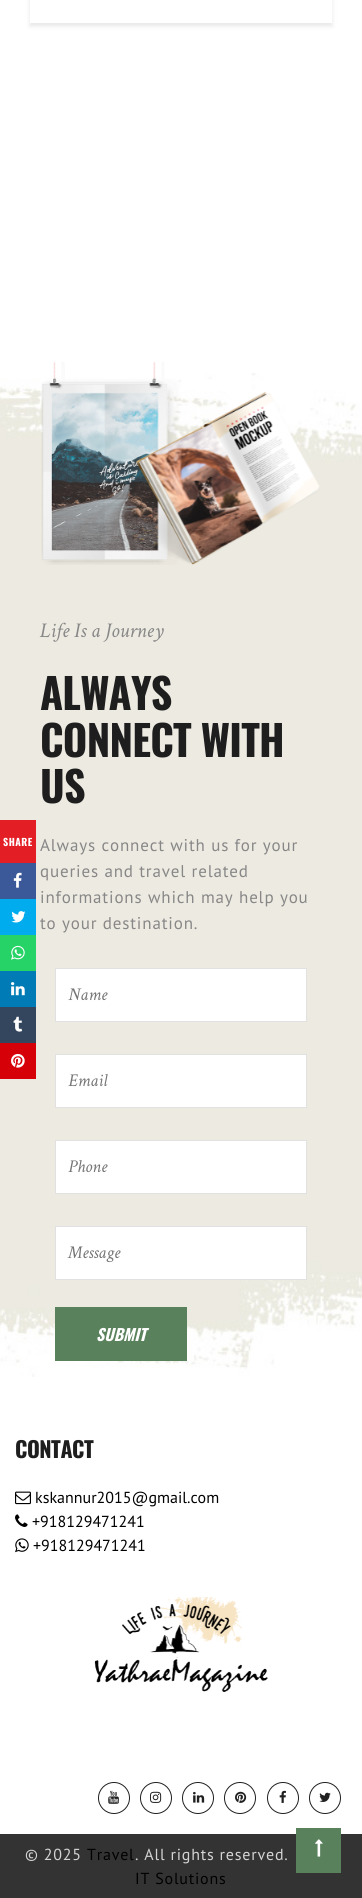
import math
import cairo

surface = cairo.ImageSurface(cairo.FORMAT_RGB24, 362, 1898)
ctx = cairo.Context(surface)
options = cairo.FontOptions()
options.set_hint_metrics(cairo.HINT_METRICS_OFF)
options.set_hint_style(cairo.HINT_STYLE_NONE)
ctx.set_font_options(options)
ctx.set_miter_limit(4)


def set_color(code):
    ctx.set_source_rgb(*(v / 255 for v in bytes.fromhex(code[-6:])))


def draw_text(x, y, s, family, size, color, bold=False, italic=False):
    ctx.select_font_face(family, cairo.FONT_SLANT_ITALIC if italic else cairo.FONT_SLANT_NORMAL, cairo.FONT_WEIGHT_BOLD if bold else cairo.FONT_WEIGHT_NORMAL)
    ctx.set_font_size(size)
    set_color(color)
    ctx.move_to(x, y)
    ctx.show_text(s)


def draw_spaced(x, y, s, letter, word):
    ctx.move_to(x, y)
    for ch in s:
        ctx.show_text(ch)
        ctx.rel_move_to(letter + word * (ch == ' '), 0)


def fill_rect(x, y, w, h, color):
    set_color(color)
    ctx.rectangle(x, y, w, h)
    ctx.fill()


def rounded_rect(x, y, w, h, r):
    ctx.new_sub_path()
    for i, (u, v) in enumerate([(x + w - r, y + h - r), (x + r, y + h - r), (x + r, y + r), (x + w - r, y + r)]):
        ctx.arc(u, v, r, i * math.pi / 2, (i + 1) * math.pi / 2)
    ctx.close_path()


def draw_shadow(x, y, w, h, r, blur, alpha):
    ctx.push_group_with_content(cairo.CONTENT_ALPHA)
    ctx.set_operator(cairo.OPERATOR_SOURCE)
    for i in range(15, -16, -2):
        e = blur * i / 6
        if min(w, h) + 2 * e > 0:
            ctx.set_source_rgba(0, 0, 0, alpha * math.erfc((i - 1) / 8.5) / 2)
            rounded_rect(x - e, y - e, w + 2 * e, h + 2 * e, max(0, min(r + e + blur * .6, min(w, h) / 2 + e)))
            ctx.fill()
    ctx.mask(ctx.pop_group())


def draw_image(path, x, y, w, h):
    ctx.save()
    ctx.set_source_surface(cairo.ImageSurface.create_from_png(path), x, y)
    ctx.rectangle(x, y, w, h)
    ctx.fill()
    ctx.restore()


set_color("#ffffff")
ctx.paint()
ctx.save()
ctx.set_fill_rule(cairo.FILL_RULE_EVEN_ODD)
ctx.new_path()
ctx.move_to(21, 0)
ctx.line_to(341, 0)
ctx.line_to(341, 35)
ctx.line_to(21, 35)
ctx.close_path()
ctx.move_to(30, -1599)
ctx.line_to(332, -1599)
ctx.line_to(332, 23)
ctx.line_to(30, 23)
ctx.close_path()
ctx.clip()
set_color("#000101")
draw_shadow(30, -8, 302, 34, 0, 2.5, 0.1)
ctx.restore()
draw_image("assets/img7.png", 0, 373, 362, 1004)
fill_rect(0, 820, 36, 43, "#e41e25")
ctx.select_font_face("Oswald", cairo.FONT_SLANT_NORMAL, cairo.FONT_WEIGHT_BOLD)
ctx.set_font_size(10)
set_color("#ffffff")
draw_spaced(3, 846, "SHARE", 0.5, 0)
fill_rect(0, 863, 36, 36, "#3b5998")
draw_image("assets/img1.png", 13, 872, 9, 16)
fill_rect(0, 899, 36, 36, "#00aced")
draw_image("assets/img2.png", 11, 911, 15, 12)
fill_rect(0, 935, 36, 36, "#25d366")
draw_image("assets/img3.png", 11, 945, 14, 15)
fill_rect(0, 971, 36, 36, "#007bb5")
draw_image("assets/img4.png", 11, 982, 14, 14)
fill_rect(0, 1007, 36, 36, "#34465d")
draw_image("assets/img5.png", 13, 1016, 10, 16)
fill_rect(0, 1043, 36, 36, "#d60009")
draw_image("assets/img6.png", 11, 1053, 14, 15)
draw_image("assets/img8.png", 41, 362, 279, 203)
draw_text(40, 637, "Life Is a Journey", "Crimson Text", 21, "#878787", italic=True)
ctx.select_font_face("Oswald", cairo.FONT_SLANT_NORMAL, cairo.FONT_WEIGHT_BOLD)
ctx.set_font_size(42)
set_color("#1e1e1e")
draw_spaced(40, 710, "ALWAYS", -0.8, 0)
draw_spaced(40, 757, "CONNECT WITH", -0.8, 0)
draw_spaced(40, 803, "US", -0.8, 0)
ctx.select_font_face("PT Sans")
ctx.set_font_size(17)
set_color("#878787")
draw_spaced(40, 851, "Always connect with us for your", 0.85, 0)
draw_spaced(40, 877, "queries and travel related", 0.85, 0)
draw_spaced(40, 903, "informations which may help you", 0.85, 0)
draw_spaced(40, 929, "to your destination.", 0.85, 0)
set_color("#ffffff")
ctx.rectangle(55.5, 968.5, 251, 53)
ctx.fill_preserve()
set_color("#e1e1e1")
ctx.set_line_width(1)
ctx.stroke()
draw_text(68, 1000, "Name", "Crimson Text", 18, "#757575", italic=True)
set_color("#ffffff")
ctx.rectangle(55.5, 1054.5, 251, 53)
ctx.fill_preserve()
set_color("#e1e1e1")
ctx.stroke()
draw_text(68, 1086, "Email", "Crimson Text", 18, "#757575", italic=True)
set_color("#ffffff")
ctx.rectangle(55.5, 1140.5, 251, 53)
ctx.fill_preserve()
set_color("#e1e1e1")
ctx.stroke()
draw_text(68, 1172, "Phone", "Crimson Text", 18, "#757575", italic=True)
set_color("#ffffff")
ctx.rectangle(55.5, 1226.5, 251, 53)
ctx.fill_preserve()
set_color("#e1e1e1")
ctx.stroke()
draw_text(68, 1258, "Message", "Crimson Text", 18, "#757575", italic=True)
fill_rect(55, 1307, 132, 54, "#59815b")
draw_text(96, 1341, "SUBMIT", "Oswald", 16, "#ffffff", bold=True, italic=True)
ctx.select_font_face("Oswald", cairo.FONT_SLANT_NORMAL, cairo.FONT_WEIGHT_BOLD)
ctx.set_font_size(22)
set_color("#1e1e1e")
draw_spaced(15, 1458, "CONTACT", -0.5, 0)
draw_image("assets/img9.png", 15, 1491, 16, 14)
draw_text(35, 1503, "kskannur2015@gmail.com", "PT Sans", 16, "#000000")
draw_image("assets/img10.png", 15, 1514, 13, 13)
draw_text(32, 1527, "+918129471241", "PT Sans", 16, "#000000")
draw_image("assets/img11.png", 15, 1538, 14, 15)
draw_text(33, 1551, "+918129471241", "PT Sans", 16, "#000000")
draw_image("assets/img12.png", 94, 1597, 174, 95)
ctx.arc(114, 1798, 15.5, 0, 2 * math.pi)
set_color("#202020")
ctx.stroke()
draw_image("assets/img13.png", 108, 1790, 11, 14)
ctx.arc(156, 1798, 15.5, 0, 2 * math.pi)
ctx.stroke()
draw_image("assets/img14.png", 150, 1791, 12, 12)
ctx.arc(198, 1798, 15.5, 0, 2 * math.pi)
ctx.stroke()
draw_image("assets/img15.png", 193, 1791, 12, 12)
ctx.arc(240, 1798, 15.5, 0, 2 * math.pi)
ctx.stroke()
draw_image("assets/img16.png", 235, 1791, 12, 12)
ctx.arc(283, 1798, 15.5, 0, 2 * math.pi)
ctx.stroke()
draw_image("assets/img17.png", 279, 1790, 7, 13)
ctx.arc(325, 1798, 15.5, 0, 2 * math.pi)
ctx.stroke()
draw_image("assets/img18.png", 319, 1792, 12, 10)
fill_rect(0, 1834, 362, 64, "#333333")
set_color("#d4d4d4")
draw_spaced(25, 1860, "© 2025", 0.8, 0)
set_color("#000000")
draw_spaced(87, 1860, "Travel", 0.8, 0)
set_color("#d4d4d4")
draw_spaced(135, 1860, ". All rights reserved.", 0.8, 0)
set_color("#000000")
draw_spaced(135, 1884, "IT Solutions", 0.8, 0)
fill_rect(296, 1828, 45, 45, "#59815b")
draw_image("assets/img19.png", 315, 1839, 8, 18)
surface.write_to_png("output.png")
